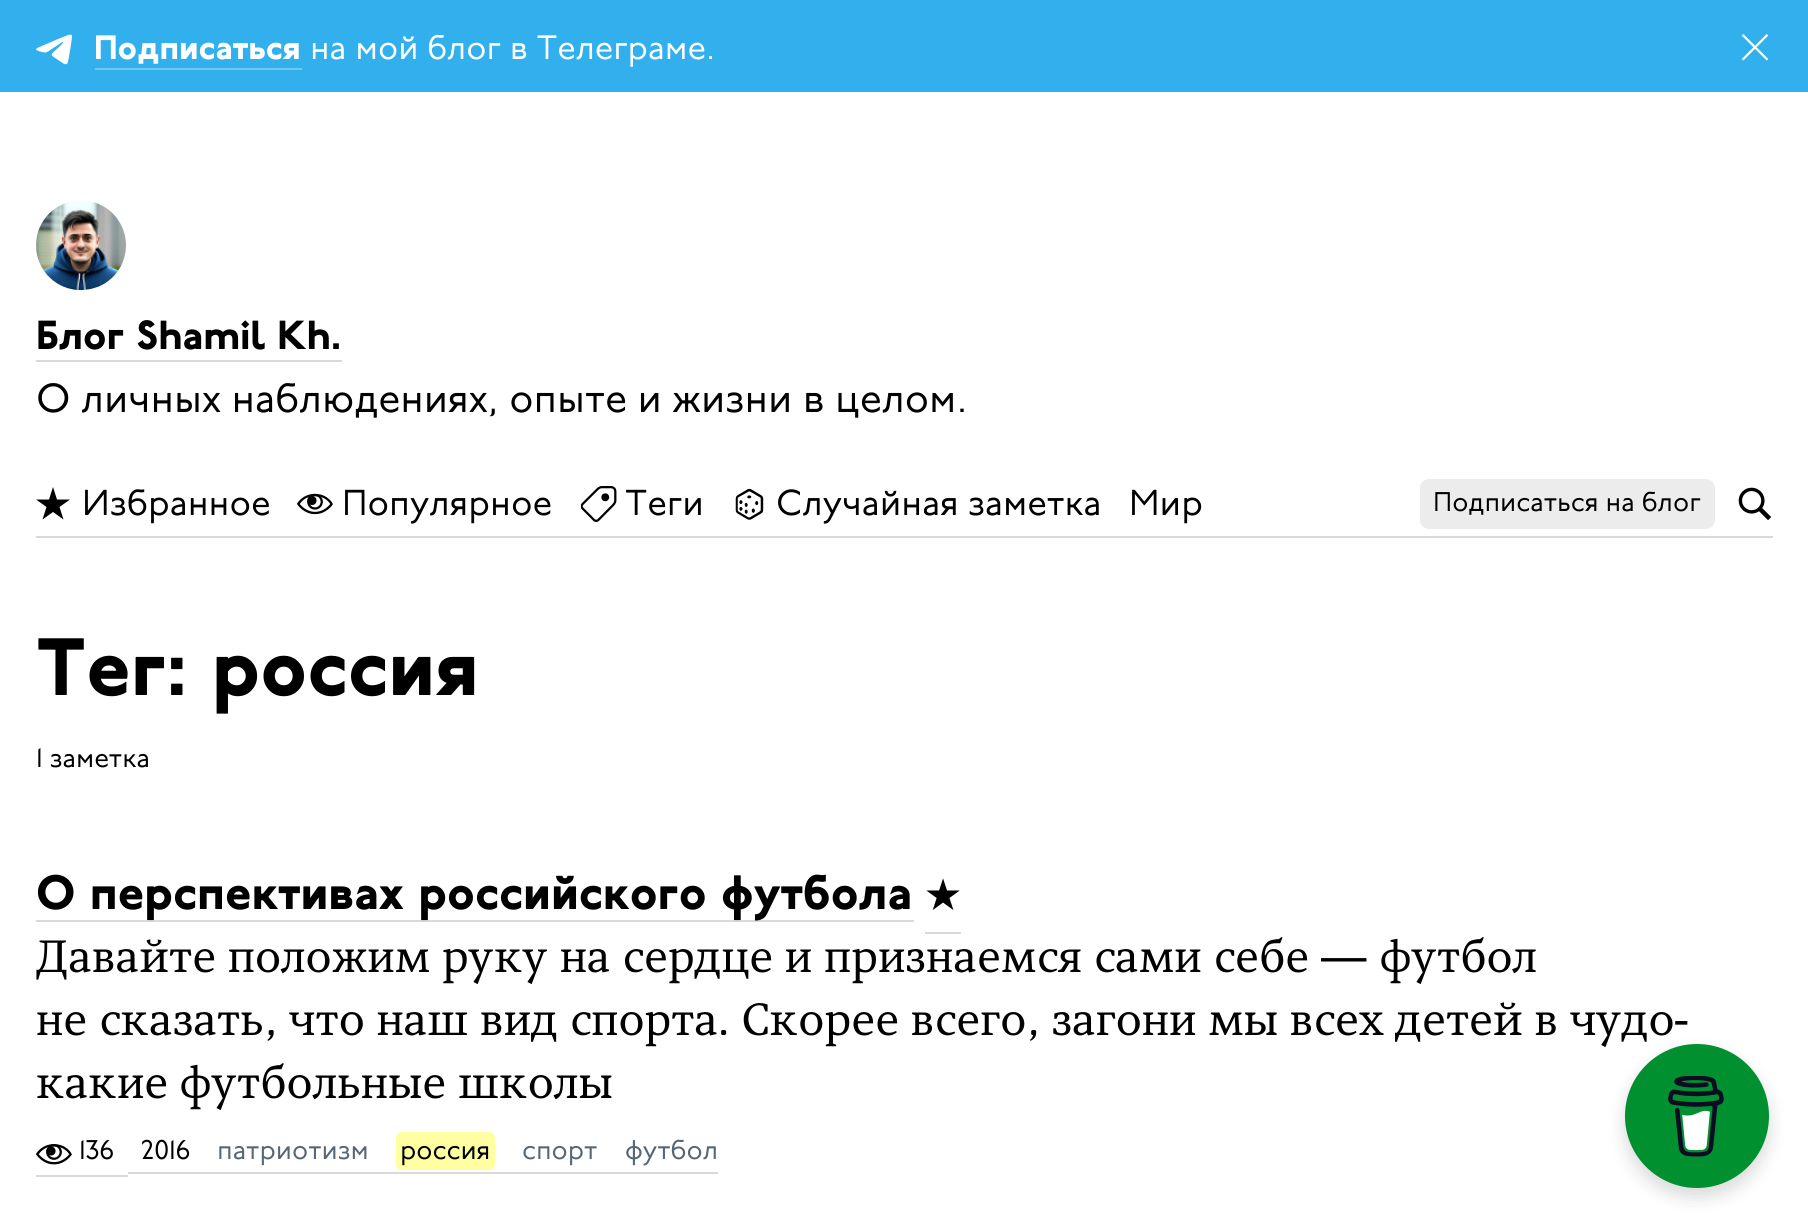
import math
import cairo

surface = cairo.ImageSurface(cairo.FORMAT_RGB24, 1808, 1227)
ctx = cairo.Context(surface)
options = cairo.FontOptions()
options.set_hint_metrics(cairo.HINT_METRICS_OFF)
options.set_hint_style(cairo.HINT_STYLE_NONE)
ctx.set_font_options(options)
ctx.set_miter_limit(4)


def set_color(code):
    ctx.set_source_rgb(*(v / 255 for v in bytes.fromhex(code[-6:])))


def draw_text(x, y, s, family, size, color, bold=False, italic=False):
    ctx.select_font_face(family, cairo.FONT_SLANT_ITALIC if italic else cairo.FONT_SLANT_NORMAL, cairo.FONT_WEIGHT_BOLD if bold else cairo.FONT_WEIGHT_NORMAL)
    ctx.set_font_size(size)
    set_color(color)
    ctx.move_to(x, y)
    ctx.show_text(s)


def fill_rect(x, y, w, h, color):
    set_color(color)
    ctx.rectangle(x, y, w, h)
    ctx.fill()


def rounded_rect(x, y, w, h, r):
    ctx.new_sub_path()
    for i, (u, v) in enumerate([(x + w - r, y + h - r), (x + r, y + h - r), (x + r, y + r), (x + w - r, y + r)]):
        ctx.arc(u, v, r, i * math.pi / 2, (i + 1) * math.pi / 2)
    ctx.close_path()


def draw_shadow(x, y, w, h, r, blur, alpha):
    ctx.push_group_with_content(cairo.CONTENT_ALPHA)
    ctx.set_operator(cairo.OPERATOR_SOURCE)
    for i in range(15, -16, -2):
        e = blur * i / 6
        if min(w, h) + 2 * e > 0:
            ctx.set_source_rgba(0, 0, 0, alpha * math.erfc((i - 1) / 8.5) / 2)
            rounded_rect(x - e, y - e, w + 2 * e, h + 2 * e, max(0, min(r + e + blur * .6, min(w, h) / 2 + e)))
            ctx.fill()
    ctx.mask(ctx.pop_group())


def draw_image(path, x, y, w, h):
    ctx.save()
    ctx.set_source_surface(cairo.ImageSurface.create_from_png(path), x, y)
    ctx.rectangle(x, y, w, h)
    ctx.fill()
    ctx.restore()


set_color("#ffffff")
ctx.paint()
fill_rect(0, 0, 1808, 92, "#32afed")
draw_image("assets/img1.png", 36, 34, 36, 31)
draw_text(94, 59, "Подписаться", "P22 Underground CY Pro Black", 33.75, "#ffffff")
fill_rect(95, 68, 207, 2, "#70c7f2")
draw_text(310, 59, "на мой блог в Телеграме.", "P22 Underground CY Pro", 33.75, "#ffffff")
draw_image("assets/img2.png", 1741, 34, 28, 27)
draw_image("assets/img3.png", 36, 200, 90, 91)
draw_text(36, 349, "Блог Shamil Kh.", "P22 Underground CY Pro Black", 40.5, "#000000")
fill_rect(36, 360, 306, 2, "#d9d9d9")
draw_text(36, 412, "О личных наблюдениях, опыте и жизни в целом.", "P22 Underground CY Pro", 40.5, "#000000")
ctx.new_path()
ctx.move_to(46.5, 507)
ctx.line_to(42.5, 519.5)
ctx.line_to(53, 512)
ctx.line_to(63.5, 519.5)
ctx.line_to(59.5, 507)
ctx.line_to(70, 499.5)
ctx.line_to(57, 499.5)
ctx.line_to(53, 487)
ctx.line_to(49, 499.5)
ctx.line_to(36, 499.5)
ctx.close_path()
ctx.fill()
draw_text(82, 515, "Избранное", "P22 Underground CY Pro", 36, "#000000")
draw_image("assets/img4.png", 297, 493, 36, 22)
draw_text(342, 515, "Популярное", "P22 Underground CY Pro", 36, "#000000")
draw_image("assets/img5.png", 581, 486, 36, 36)
draw_text(625, 515, "Теги", "P22 Underground CY Pro", 36, "#000000")
draw_image("assets/img6.png", 735, 488, 29, 32)
draw_text(776, 515, "Случайная заметка", "P22 Underground CY Pro", 36, "#000000")
draw_text(1129, 515, "Мир", "P22 Underground CY Pro", 36, "#000000")
set_color("#ececec")
rounded_rect(1420, 479, 295, 50, 9)
ctx.fill()
draw_text(1433, 511, "Подписаться на блог", "P22 Underground CY Pro", 27, "#000000")
draw_image("assets/img7.png", 1738, 487, 34, 34)
fill_rect(36, 536, 1737, 2, "#d9d9d9")
draw_text(36, 695, "Тег: россия", "P22 Underground CY Pro Black", 81, "#000000")
draw_text(36, 767, "1 заметка", "P22 Underground CY Pro", 27, "#000000")
fill_rect(36, 920, 878, 2, "#d9d9d9")
fill_rect(925, 932, 36, 2, "#d9d9d9")
draw_text(36, 909, "О перспективах российского футбола", "P22 Underground CY Pro Black", 48.1, "#000000")
draw_text(925, 909, "★", "DejaVu Sans", 39, "#000000", bold=True)
draw_text(36, 972, "Давайте положим руку на сердце и признаемся сами себе — футбол", "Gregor", 45, "#000000")
draw_text(36, 1035, "не сказать, что наш вид спорта. Скорее всего, загони мы всех детей в чудо-", "Gregor", 45, "#000000")
draw_text(36, 1098, "какие футбольные школы", "Gregor", 45, "#000000")
fill_rect(36, 1175, 92, 2, "#d9d9d9")
draw_image("assets/img8.png", 36, 1144, 36, 21)
draw_text(79, 1159, "136", "P22 Underground CY Pro", 27, "#000000")
fill_rect(128, 1172, 590, 2, "#d9d9d9")
draw_text(141, 1159, "2016", "P22 Underground CY Pro", 27, "#000000")
draw_text(217, 1159, "патриотизм", "P22 Underground CY Pro", 27, "#556677")
set_color("#ffffa1")
rounded_rect(396, 1132, 99, 38, 6)
ctx.fill()
draw_text(400, 1159, "россия", "P22 Underground CY Pro", 27, "#000000")
draw_text(522, 1159, "спорт", "P22 Underground CY Pro", 27, "#556677")
draw_text(625, 1159, "футбол", "P22 Underground CY Pro", 27, "#556677")
set_color("#000000")
draw_shadow(1625, 1053, 144, 144, 72, 9, 0.15)
set_color("#009030")
ctx.arc(1697, 1116, 72, 0, 2 * math.pi)
ctx.fill()
draw_image("assets/img9.png", 1668, 1076, 56, 81)
surface.write_to_png("output.png")
